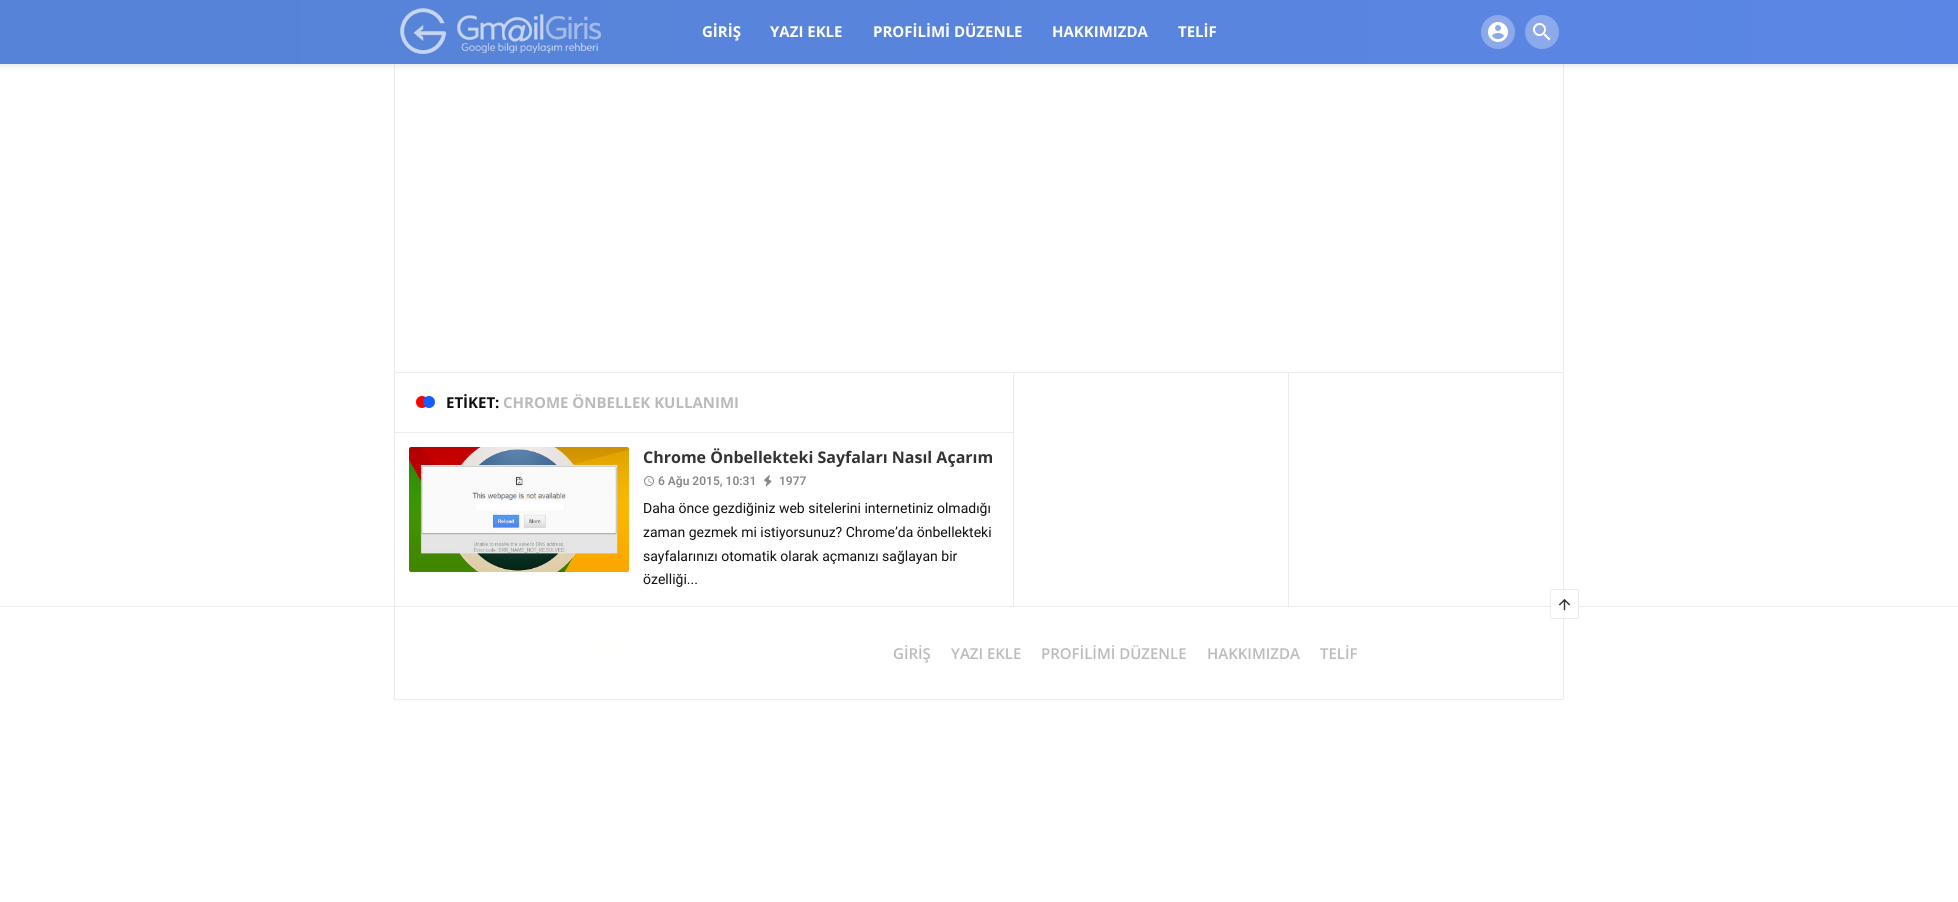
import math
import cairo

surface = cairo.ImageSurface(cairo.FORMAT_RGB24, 1958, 902)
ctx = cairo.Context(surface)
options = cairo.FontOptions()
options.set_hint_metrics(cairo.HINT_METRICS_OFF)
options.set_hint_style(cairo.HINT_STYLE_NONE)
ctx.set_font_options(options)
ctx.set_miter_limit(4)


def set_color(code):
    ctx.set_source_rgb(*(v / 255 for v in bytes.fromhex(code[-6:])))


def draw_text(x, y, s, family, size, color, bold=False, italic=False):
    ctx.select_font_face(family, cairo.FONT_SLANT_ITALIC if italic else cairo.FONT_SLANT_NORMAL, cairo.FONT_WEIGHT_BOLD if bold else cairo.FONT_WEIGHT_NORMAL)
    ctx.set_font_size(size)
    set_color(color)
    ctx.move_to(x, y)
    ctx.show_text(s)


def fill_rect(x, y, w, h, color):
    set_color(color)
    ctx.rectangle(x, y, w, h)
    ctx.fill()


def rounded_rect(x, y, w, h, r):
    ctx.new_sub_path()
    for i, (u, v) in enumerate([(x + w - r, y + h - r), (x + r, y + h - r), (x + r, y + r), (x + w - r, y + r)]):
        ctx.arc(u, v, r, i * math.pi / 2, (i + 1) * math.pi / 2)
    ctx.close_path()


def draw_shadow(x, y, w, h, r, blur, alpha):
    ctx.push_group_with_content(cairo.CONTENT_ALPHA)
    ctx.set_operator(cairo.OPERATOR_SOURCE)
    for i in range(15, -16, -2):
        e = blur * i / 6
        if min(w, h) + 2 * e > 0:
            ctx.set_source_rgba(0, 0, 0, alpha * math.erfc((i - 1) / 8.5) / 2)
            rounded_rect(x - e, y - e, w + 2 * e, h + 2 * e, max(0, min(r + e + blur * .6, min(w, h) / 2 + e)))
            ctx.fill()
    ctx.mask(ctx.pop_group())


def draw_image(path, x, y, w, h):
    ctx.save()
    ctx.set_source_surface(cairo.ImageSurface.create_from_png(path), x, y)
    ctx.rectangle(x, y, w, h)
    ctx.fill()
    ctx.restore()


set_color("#ffffff")
ctx.paint()
fill_rect(1563, 64, 1, 525, "#ececec")
fill_rect(394, 372, 1170, 1, "#ececec")
fill_rect(0, 606, 1958, 1, "#ececec")
fill_rect(394, 64, 1, 543, "#ececec")
set_color("#000000")
draw_shadow(0, 2, 1958, 64, 0, 3.5, 0.1)
gradient = cairo.LinearGradient(0, 32, 1958, 32)
gradient.add_color_stop_rgba(0, 0.337, 0.514, 0.835, 1)
gradient.add_color_stop_rgba(1, 0.357, 0.525, 0.898, 1)
ctx.set_source(gradient)
ctx.rectangle(0, 0, 1958, 64)
ctx.fill()
draw_image("assets/img1.png", 400, 8, 201, 46)
draw_text(702, 37, "GİRİŞ", "Open Sans", 15, "#ffffff", bold=True)
draw_text(770, 37, "YAZI EKLE", "Open Sans", 15, "#ffffff", bold=True)
draw_text(873, 37, "PROFİLİMİ DÜZENLE", "Open Sans", 15, "#ffffff", bold=True)
draw_text(1052, 37, "HAKKIMIZDA", "Open Sans", 15, "#ffffff", bold=True)
draw_text(1178, 37, "TELİF", "Open Sans", 15, "#ffffff", bold=True)
set_color("#8caaea")
ctx.new_path()
ctx.arc(1498, 32, 17, 0, 2 * math.pi)
ctx.fill()
draw_image("assets/img2.png", 1488, 22, 20, 20)
set_color("#8caaeb")
ctx.arc(1542, 32, 17, 0, 2 * math.pi)
ctx.fill()
draw_image("assets/img3.png", 1533, 23, 18, 18)
fill_rect(1013, 373, 1, 234, "#ececec")
fill_rect(395, 432, 618, 1, "#ececec")
set_color("#ff0000")
ctx.arc(422, 402, 6, 0, 2 * math.pi)
ctx.fill()
set_color("#145dff")
ctx.arc(429, 402, 6, 0, 2 * math.pi)
ctx.fill()
draw_text(446, 408, "ETİKET:", "Open Sans", 15, "#111111", bold=True)
draw_text(503, 408, "CHROME ÖNBELLEK KULLANIMI", "Open Sans", 15, "#bbbbbb", bold=True)
draw_image("assets/img4.png", 409, 447, 220, 125)
draw_text(643, 463, "Chrome Önbellekteki Sayfaları Nasıl Açarım", "Open Sans", 16, "#333333", bold=True)
draw_image("assets/img5.png", 644, 476, 10, 10)
draw_text(658, 485, "6 Ağu 2015, 10:31", "Roboto SemiBold", 12, "#888888")
draw_image("assets/img6.png", 764, 475, 8, 12)
draw_text(779, 485, "1977", "Roboto SemiBold", 12, "#888888")
draw_text(643, 513, "Daha önce gezdiğiniz web sitelerini internetiniz olmadığı", "Roboto", 14, "#111111")
draw_text(643, 537, "zaman gezmek mi istiyorsunuz? Chrome’da önbellekteki", "Roboto", 14, "#111111")
draw_text(643, 561, "sayfalarınızı otomatik olarak açmanızı sağlayan bir", "Roboto", 14, "#111111")
draw_text(643, 584, "özelliği...", "Roboto", 14, "#111111")
fill_rect(1288, 373, 1, 234, "#ececec")
fill_rect(1563, 619, 1, 81, "#ececec")
fill_rect(394, 699, 1170, 1, "#ececec")
fill_rect(394, 607, 1, 93, "#ececec")
set_color("#ffffff")
rounded_rect(1550.5, 589.5, 28, 29, 1.5)
ctx.fill_preserve()
set_color("#ececec")
ctx.set_line_width(1)
ctx.stroke()
draw_image("assets/img7.png", 1558, 598, 13, 13)
draw_image("assets/img8.png", 575, 637, 55, 23)
draw_text(893, 659, "GİRİŞ", "Open Sans SemiBold", 15, "#bbbbbb")
draw_text(951, 659, "YAZI EKLE", "Open Sans SemiBold", 15, "#bbbbbb")
draw_text(1041, 659, "PROFİLİMİ DÜZENLE", "Open Sans SemiBold", 15, "#bbbbbb")
draw_text(1207, 659, "HAKKIMIZDA", "Open Sans SemiBold", 15, "#bbbbbb")
draw_text(1320, 659, "TELİF", "Open Sans SemiBold", 15, "#bbbbbb")
surface.write_to_png("output.png")
